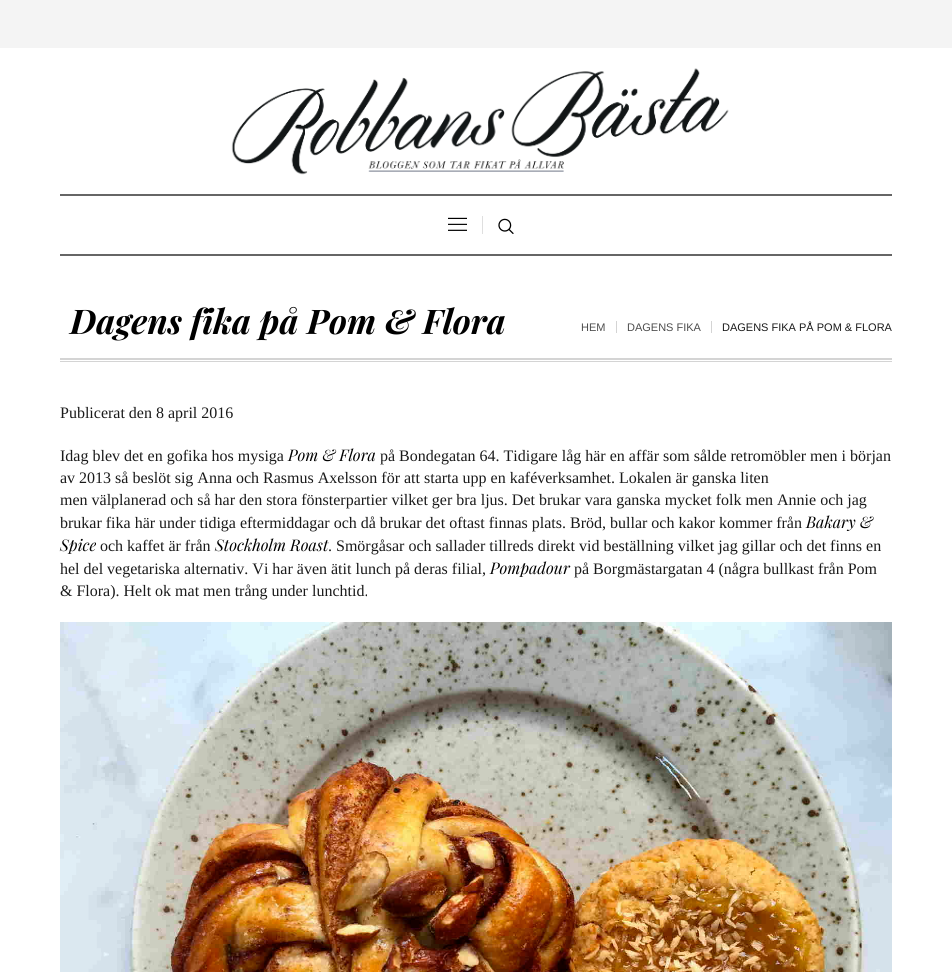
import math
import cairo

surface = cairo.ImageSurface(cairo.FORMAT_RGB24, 952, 972)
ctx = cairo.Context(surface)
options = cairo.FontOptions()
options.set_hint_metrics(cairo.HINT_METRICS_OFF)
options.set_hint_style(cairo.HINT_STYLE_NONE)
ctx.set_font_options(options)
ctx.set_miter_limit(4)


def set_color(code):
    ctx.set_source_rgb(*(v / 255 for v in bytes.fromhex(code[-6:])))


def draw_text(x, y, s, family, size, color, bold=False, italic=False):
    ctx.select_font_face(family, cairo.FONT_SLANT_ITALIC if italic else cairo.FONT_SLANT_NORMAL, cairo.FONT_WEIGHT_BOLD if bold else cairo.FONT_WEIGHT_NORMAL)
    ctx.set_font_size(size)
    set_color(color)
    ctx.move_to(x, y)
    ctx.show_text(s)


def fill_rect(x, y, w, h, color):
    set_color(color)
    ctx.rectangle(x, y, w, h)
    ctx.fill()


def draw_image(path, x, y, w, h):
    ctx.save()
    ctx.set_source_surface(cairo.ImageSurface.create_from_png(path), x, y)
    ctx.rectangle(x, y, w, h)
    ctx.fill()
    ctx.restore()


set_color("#ffffff")
ctx.paint()
fill_rect(0, 0, 952, 48, "#f4f4f4")
draw_image("assets/img1.png", 231, 68, 498, 107)
fill_rect(60, 194, 832, 2, "#666666")
fill_rect(60, 254, 832, 2, "#666666")
draw_image("assets/img2.png", 448, 217, 19, 14)
fill_rect(482, 216, 1, 18, "#dfdfdf")
draw_image("assets/img3.png", 498, 218, 16, 16)
fill_rect(60, 358, 832, 2, "#d4d4d4")
fill_rect(60, 361, 832, 1, "#d4d4d4")
draw_text(70, 334, "Dagens fika på Pom & Flora", "Playfair Display", 34, "#000000", bold=True, italic=True)
draw_text(581, 331, "HEM", "Liberation Sans", 11, "#4d4d4d")
fill_rect(616, 321, 1, 12, "#d4d4d4")
draw_text(627, 331, "DAGENS FIKA", "Liberation Sans", 11, "#4d4d4d")
fill_rect(711, 321, 1, 12, "#d4d4d4")
draw_text(722, 331, "DAGENS FIKA PÅ POM & FLORA", "Liberation Sans", 11, "#1a1a1a")
draw_text(60, 418, "Publicerat den 8 april 2016", "Liberation Serif", 16, "#1a1a1a")
draw_text(60, 461, "Idag blev det en gofika hos mysiga", "Liberation Serif", 16, "#1a1a1a")
draw_text(288, 461, "Pom & Flora", "Playfair Display", 16, "#000000", italic=True)
draw_text(380, 461, "på Bondegatan 64. Tidigare låg här en affär som sålde retromöbler men i början", "Liberation Serif", 16, "#1a1a1a")
draw_text(60, 483, "av 2013 så beslöt sig Anna och Rasmus Axelsson för att starta upp en kaféverksamhet. Lokalen är ganska liten", "Liberation Serif", 16, "#1a1a1a")
draw_text(60, 505, "men välplanerad och så har den stora fönsterpartier vilket ger bra ljus. Det brukar vara ganska mycket folk men Annie och jag", "Liberation Serif", 16, "#1a1a1a")
draw_text(60, 528, "brukar fika här under tidiga eftermiddagar och då brukar det oftast finnas plats. Bröd, bullar och kakor kommer från", "Liberation Serif", 16, "#1a1a1a")
draw_text(806, 528, "Bakary &", "Playfair Display", 16, "#000000", italic=True)
draw_text(60, 551, "Spice", "Playfair Display", 16, "#000000", italic=True)
draw_text(100, 551, "och kaffet är från", "Liberation Serif", 16, "#1a1a1a")
draw_text(215, 551, "Stockholm Roast", "Playfair Display", 16, "#000000", italic=True)
draw_text(328, 551, ". Smörgåsar och sallader tillreds direkt vid beställning vilket jag gillar och det finns en", "Liberation Serif", 16, "#1a1a1a")
draw_text(60, 574, "hel del vegetariska alternativ. Vi har även ätit lunch på deras filial,", "Liberation Serif", 16, "#1a1a1a")
draw_text(490, 574, "Pompadour", "Playfair Display", 16, "#000000", italic=True)
draw_text(574, 574, "på Borgmästargatan 4 (några bullkast från Pom", "Liberation Serif", 16, "#1a1a1a")
draw_text(60, 596, "& Flora). Helt ok mat men trång under lunchtid.", "Liberation Serif", 16, "#1a1a1a")
draw_image("assets/img4.png", 60, 622, 832, 350)
surface.write_to_png("output.png")
